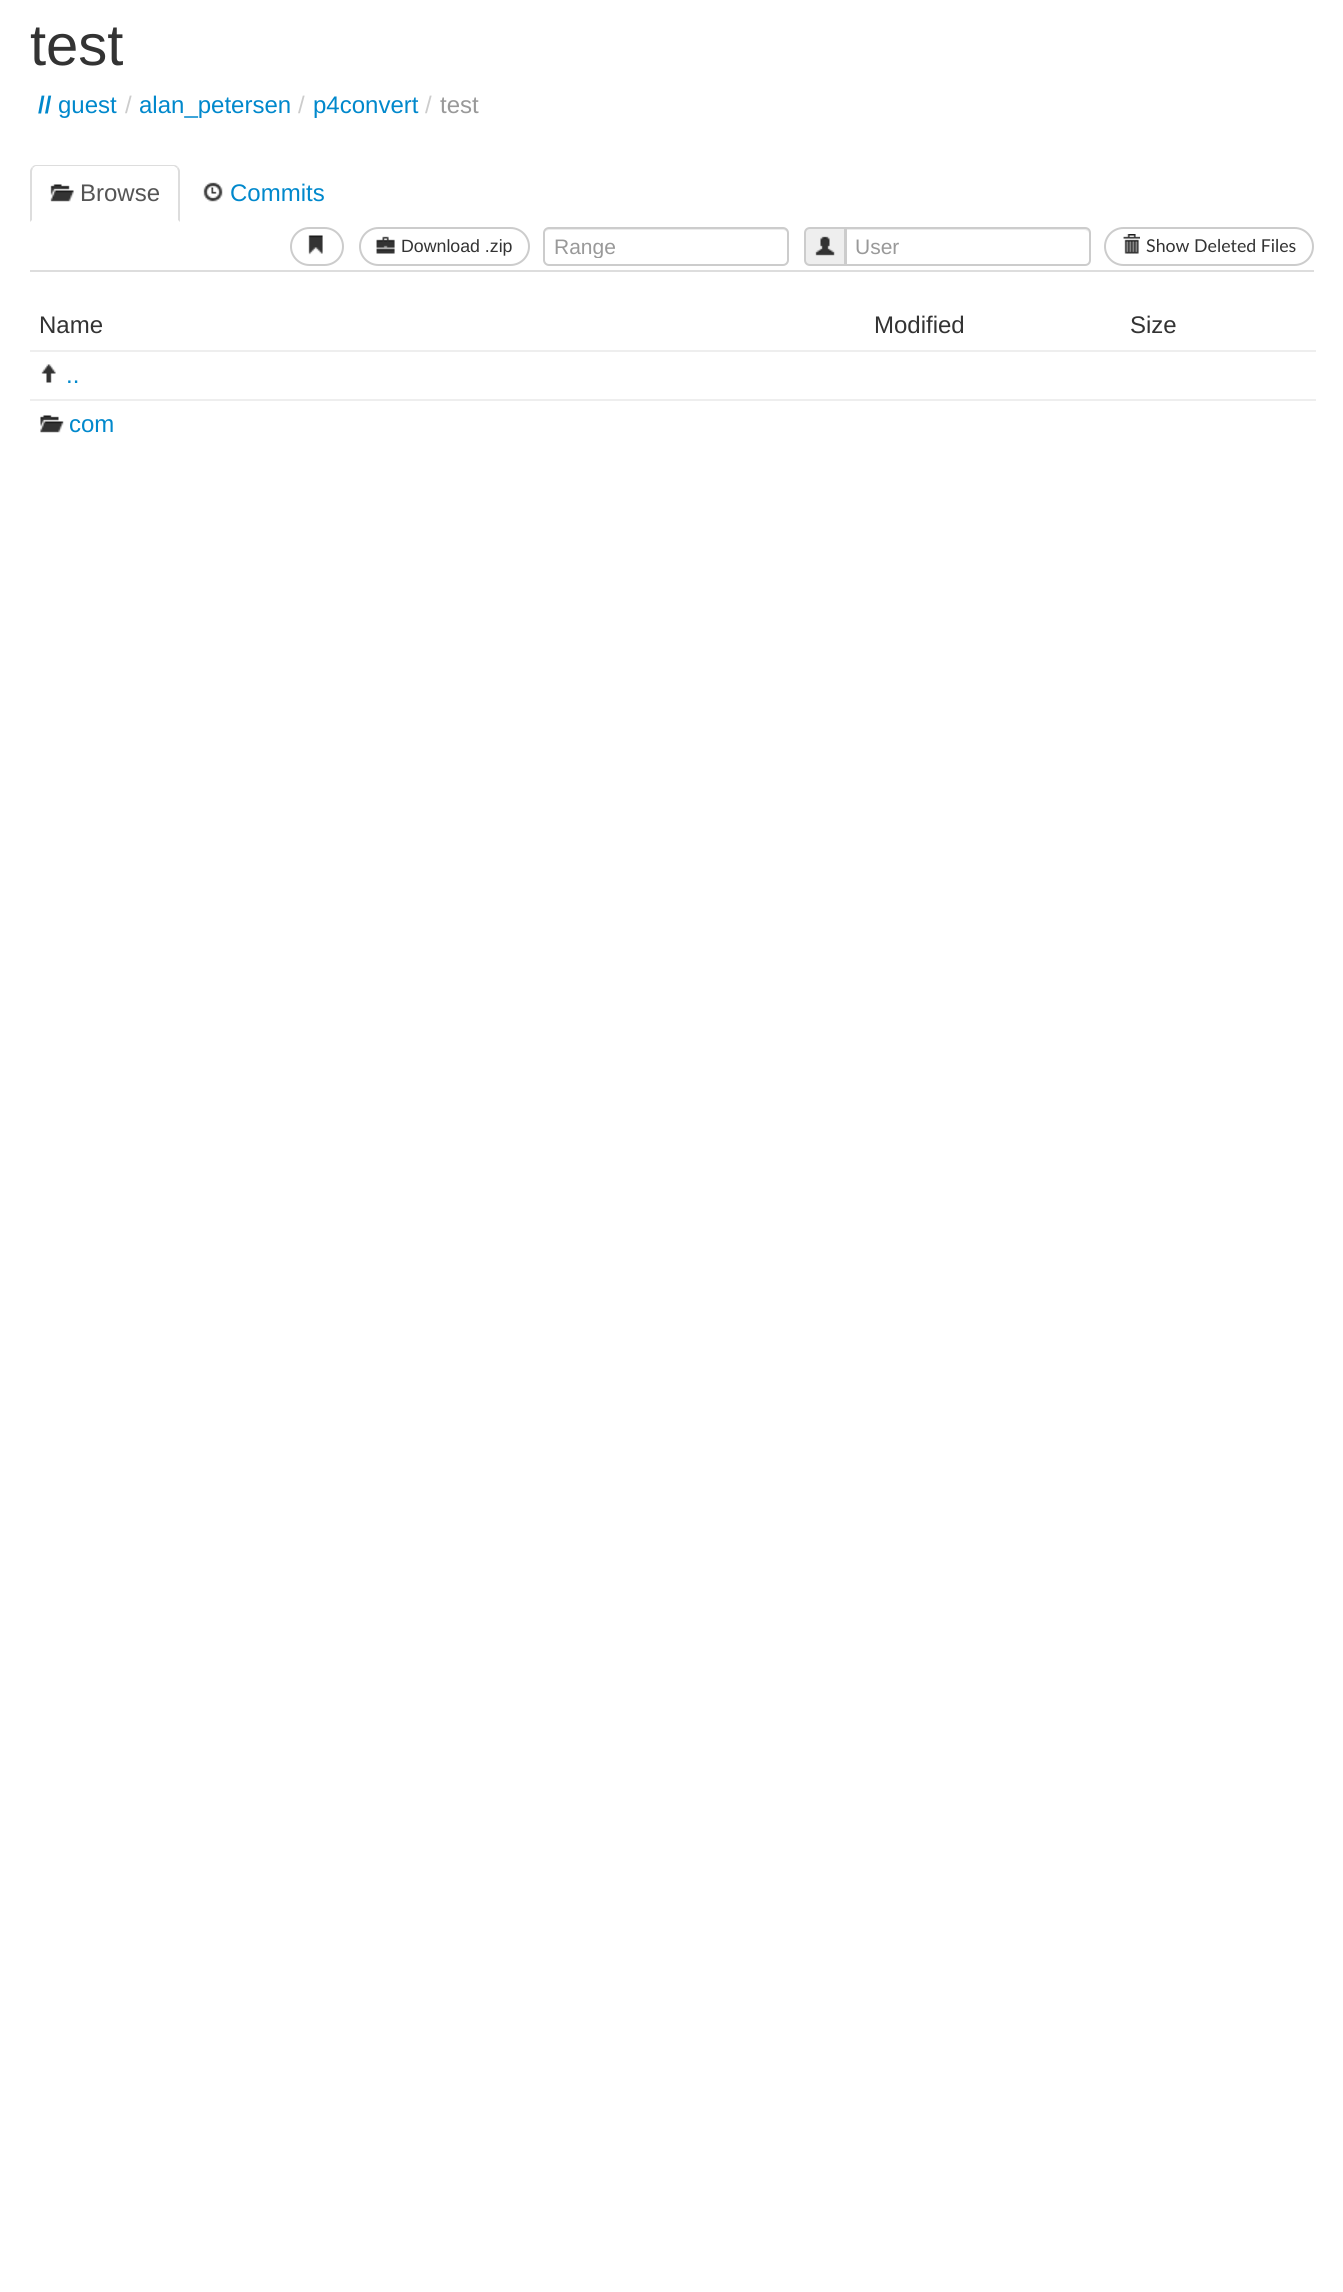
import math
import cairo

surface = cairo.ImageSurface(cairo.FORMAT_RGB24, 1343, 2292)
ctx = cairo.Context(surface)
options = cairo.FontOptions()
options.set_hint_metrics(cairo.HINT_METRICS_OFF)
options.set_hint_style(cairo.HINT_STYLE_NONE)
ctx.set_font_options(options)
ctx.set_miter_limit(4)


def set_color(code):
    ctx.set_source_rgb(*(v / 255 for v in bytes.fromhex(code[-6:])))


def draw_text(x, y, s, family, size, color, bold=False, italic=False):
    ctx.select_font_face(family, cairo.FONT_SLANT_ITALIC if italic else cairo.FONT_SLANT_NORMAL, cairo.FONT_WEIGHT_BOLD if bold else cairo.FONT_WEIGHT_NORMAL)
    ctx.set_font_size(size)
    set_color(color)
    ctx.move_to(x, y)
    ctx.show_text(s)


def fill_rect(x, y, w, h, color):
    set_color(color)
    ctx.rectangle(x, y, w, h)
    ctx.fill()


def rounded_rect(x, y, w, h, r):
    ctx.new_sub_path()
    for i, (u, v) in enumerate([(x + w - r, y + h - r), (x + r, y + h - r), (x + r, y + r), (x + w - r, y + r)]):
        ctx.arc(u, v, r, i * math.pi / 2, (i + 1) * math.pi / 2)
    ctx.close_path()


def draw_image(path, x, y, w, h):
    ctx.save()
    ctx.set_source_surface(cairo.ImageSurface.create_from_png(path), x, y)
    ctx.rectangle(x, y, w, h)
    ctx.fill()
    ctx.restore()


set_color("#ffffff")
ctx.paint()
draw_text(30, 65, "test", "Arimo", 58, "#333333")
draw_text(38, 113, "//", "Arimo", 24, "#0088cc", bold=True)
draw_text(58, 113, "guest", "Arimo", 24, "#0088cc")
draw_text(125, 113, "/", "Arimo", 24, "#cccccc")
draw_text(139, 113, "alan_petersen", "Arimo", 24, "#0088cc")
draw_text(298, 113, "/", "Arimo", 24, "#cccccc")
draw_text(313, 113, "p4convert", "Arimo", 24, "#0088cc")
draw_text(425, 113, "/", "Arimo", 24, "#cccccc")
draw_text(440, 113, "test", "Arimo", 24, "#999999")
fill_rect(30, 270, 1284, 2, "#dddddd")
ctx.new_path()
ctx.move_to(36, 165)
ctx.curve_to(34, 165, 33, 166, 32, 167)
ctx.line_to(33, 168)
ctx.curve_to(34, 167, 35, 166, 36, 166)
ctx.line_to(174, 166)
ctx.line_to(177, 168)
ctx.line_to(178, 167)
ctx.curve_to(177, 166, 176, 165, 174, 165)
ctx.close_path()
ctx.fill()
ctx.new_path()
ctx.move_to(180, 222)
ctx.line_to(180, 171)
ctx.curve_to(180, 170, 179, 168, 178, 167)
ctx.line_to(177, 168)
ctx.line_to(178, 171)
ctx.line_to(178, 220)
ctx.close_path()
ctx.fill()
ctx.new_path()
ctx.move_to(30, 222)
ctx.line_to(32, 220)
ctx.line_to(32, 171)
ctx.line_to(33, 168)
ctx.line_to(32, 167)
ctx.curve_to(31, 168, 30, 170, 30, 171)
ctx.close_path()
ctx.fill()
draw_image("assets/img1.png", 50, 184, 24, 18)
draw_text(80, 201, "Browse", "Arimo", 24, "#555555")
draw_image("assets/img2.png", 203, 182, 20, 20)
draw_text(230, 201, "Commits", "Arimo", 24, "#0088cc")
rounded_rect(291, 228, 52, 37, 18.5)
set_color("#cccccc")
ctx.stroke()
draw_image("assets/img3.png", 308, 235, 15, 20)
rounded_rect(360, 228, 169, 37, 18.5)
ctx.stroke()
draw_image("assets/img4.png", 376, 236, 19, 18)
draw_text(401, 252, "Download .zip", "Arimo", 17.75, "#333333")
set_color("#ececec")
ctx.new_path()
ctx.move_to(549, 230)
ctx.line_to(783, 230)
ctx.curve_to(785, 230, 788, 232, 788, 234)
ctx.line_to(788, 233)
ctx.curve_to(788, 230, 786, 228, 783, 228)
ctx.line_to(550, 228)
ctx.curve_to(548, 228, 546, 230, 545, 232)
ctx.curve_to(546, 231, 548, 230, 549, 230)
ctx.close_path()
ctx.fill()
rounded_rect(544, 228, 244, 37, 5)
set_color("#cccccc")
ctx.stroke()
ctx.save()
ctx.rectangle(554, 234, 225, 24)
ctx.clip()
draw_text(554, 254, "Range", "Arimo", 21, "#999999")
ctx.restore()
set_color("#eeeeee")
ctx.new_path()
ctx.move_to(810, 228)
ctx.line_to(845, 228)
ctx.line_to(845, 265)
ctx.line_to(810, 265)
ctx.curve_to(807, 265, 805, 263, 805, 260)
ctx.line_to(805, 233)
ctx.curve_to(805, 230, 807, 228, 810, 228)
ctx.close_path()
ctx.fill_preserve()
set_color("#cccccc")
ctx.stroke()
draw_image("assets/img5.png", 815, 236, 20, 20)
set_color("#ffffff")
ctx.new_path()
ctx.move_to(845, 227)
ctx.line_to(1085, 227)
ctx.curve_to(1088.5, 227, 1091, 229.5, 1091, 233)
ctx.line_to(1091, 260)
ctx.curve_to(1091, 263.5, 1088.5, 266, 1085, 266)
ctx.line_to(845, 266)
ctx.close_path()
ctx.fill()
set_color("#ececec")
ctx.new_path()
ctx.move_to(846, 230)
ctx.line_to(1084, 230)
ctx.curve_to(1087, 230, 1089, 232, 1089, 234)
ctx.line_to(1089, 233)
ctx.curve_to(1089, 230, 1087, 228, 1084, 228)
ctx.line_to(846, 228)
ctx.close_path()
ctx.fill()
ctx.new_path()
ctx.move_to(846, 228)
ctx.line_to(1085, 228)
ctx.curve_to(1088, 228, 1090, 230, 1090, 233)
ctx.line_to(1090, 260)
ctx.curve_to(1090, 263, 1088, 265, 1085, 265)
ctx.line_to(846, 265)
ctx.close_path()
set_color("#cccccc")
ctx.stroke()
draw_text(855, 254, "User", "Arimo", 21, "#999999")
rounded_rect(1105, 228, 208, 37, 18.5)
set_color("#cccccc")
ctx.stroke()
draw_image("assets/img6.png", 1123, 234, 17, 20)
draw_text(1146, 252, "Show Deleted Files", "Lato", 17.75, "#333333")
draw_text(39, 333, "Name", "Arimo", 24, "#333333")
draw_text(874, 333, "Modified", "Arimo", 24, "#333333")
draw_text(1130, 333, "Size", "Arimo", 24, "#333333")
fill_rect(30, 350, 1286, 2, "#eeeeee")
draw_image("assets/img7.png", 41, 364, 15, 19)
draw_text(66, 383, "..", "Arimo", 24, "#0088cc")
fill_rect(30, 399, 1286, 2, "#eeeeee")
draw_image("assets/img8.png", 40, 415, 24, 18)
draw_text(69, 432, "com", "Arimo", 24, "#0088cc")
surface.write_to_png("output.png")
